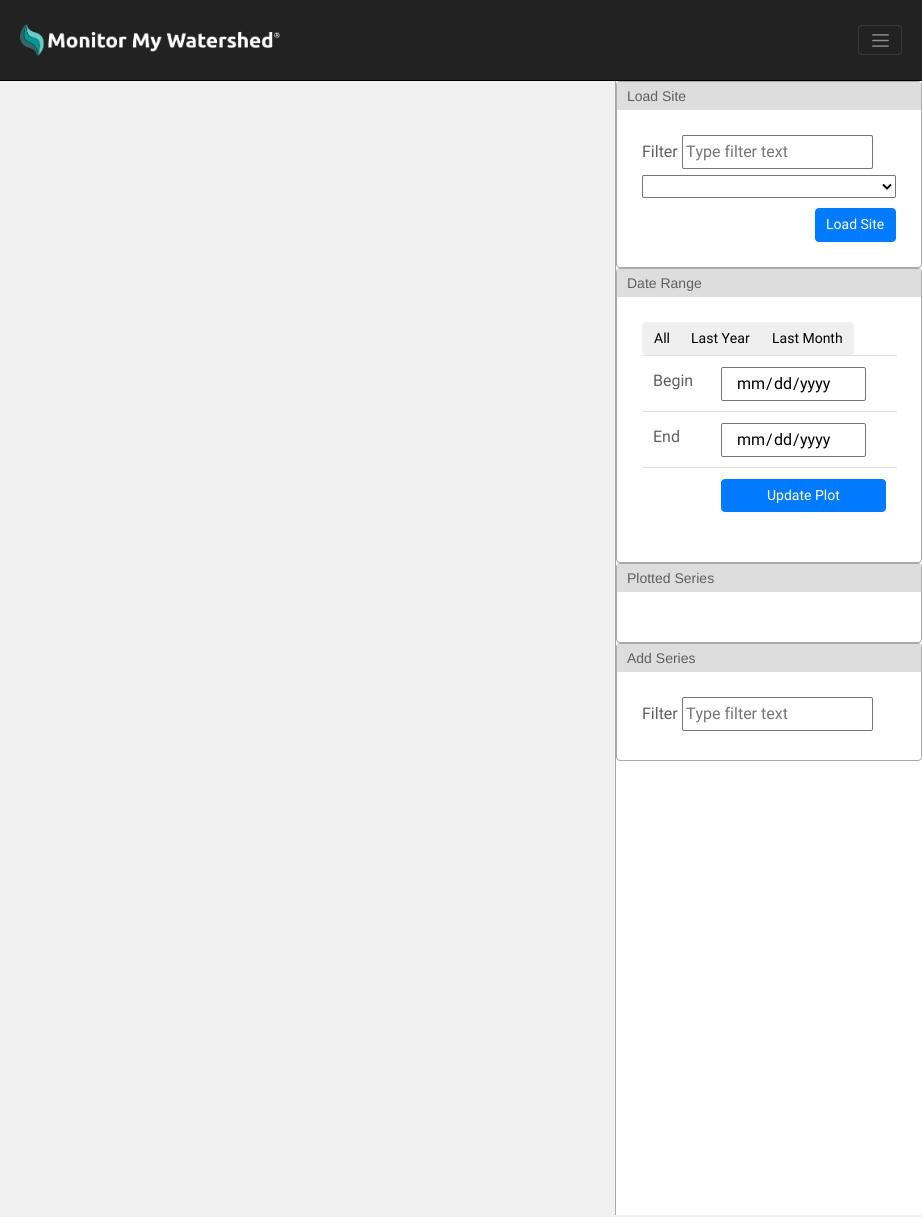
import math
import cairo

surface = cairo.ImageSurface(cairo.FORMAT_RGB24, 922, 1217)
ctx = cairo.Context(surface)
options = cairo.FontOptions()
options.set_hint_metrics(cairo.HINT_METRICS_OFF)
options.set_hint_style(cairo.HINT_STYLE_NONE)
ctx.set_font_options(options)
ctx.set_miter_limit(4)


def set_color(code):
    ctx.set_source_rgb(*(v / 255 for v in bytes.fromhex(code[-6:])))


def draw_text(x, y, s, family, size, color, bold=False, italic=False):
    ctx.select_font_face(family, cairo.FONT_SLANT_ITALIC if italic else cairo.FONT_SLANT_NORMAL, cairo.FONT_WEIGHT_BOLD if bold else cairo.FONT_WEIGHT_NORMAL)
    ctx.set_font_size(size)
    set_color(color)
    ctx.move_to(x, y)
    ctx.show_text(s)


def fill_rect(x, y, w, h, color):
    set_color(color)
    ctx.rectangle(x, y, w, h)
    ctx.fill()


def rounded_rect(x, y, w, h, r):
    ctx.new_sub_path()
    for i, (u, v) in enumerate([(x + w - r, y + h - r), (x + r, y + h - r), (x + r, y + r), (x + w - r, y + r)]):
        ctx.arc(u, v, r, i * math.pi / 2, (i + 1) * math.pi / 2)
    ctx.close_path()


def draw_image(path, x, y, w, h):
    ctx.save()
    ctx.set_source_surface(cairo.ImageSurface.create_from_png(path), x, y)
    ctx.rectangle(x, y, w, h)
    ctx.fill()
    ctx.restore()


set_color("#f1f1f1")
ctx.paint()
fill_rect(0, 0, 922, 80, "#222222")
fill_rect(0, 80, 922, 1, "#000000")
draw_image("assets/img1.png", 20, 24, 260, 32)
rounded_rect(858.5, 25.5, 43, 29, 3.5)
set_color("#383838")
ctx.set_line_width(1)
ctx.stroke()
draw_image("assets/img2.png", 872, 34, 17, 13)
fill_rect(616, 81, 306, 1134, "#ffffff")
fill_rect(615, 81, 1, 1134, "#aaaaaa")
rounded_rect(616.5, 81.5, 305, 186, 3.5)
ctx.stroke()
fill_rect(617, 82, 304, 28, "#dddddd")
draw_text(627, 101, "Load Site", "Liberation Sans", 14, "#5f5f5f")
draw_text(642, 157, "Filter", "Roboto", 16, "#5f5f5f")
rounded_rect(682.5, 135.5, 190, 33, 1.5)
set_color("#767676")
ctx.stroke()
draw_text(686, 157, "Type filter text", "Roboto", 16, "#757575")
rounded_rect(642.5, 175.5, 253, 22, 1.5)
set_color("#767676")
ctx.stroke()
ctx.new_path()
ctx.move_to(883, 184.5)
ctx.line_to(887, 188.5)
ctx.line_to(891, 184.5)
set_color("#000000")
ctx.set_line_width(2)
ctx.stroke()
set_color("#007bff")
rounded_rect(815.5, 208.5, 80, 33, 3.5)
ctx.fill_preserve()
ctx.set_line_width(1)
ctx.stroke()
draw_text(826, 229, "Load Site", "Roboto", 14, "#ffffff")
rounded_rect(616.5, 268.5, 305, 294, 3.5)
set_color("#aaaaaa")
ctx.stroke()
fill_rect(617, 269, 304, 28, "#dddddd")
draw_text(627, 288, "Date Range", "Liberation Sans", 14, "#5f5f5f")
set_color("#efefef")
ctx.new_path()
ctx.move_to(646, 322)
ctx.line_to(681, 322)
ctx.line_to(681, 355)
ctx.line_to(646, 355)
ctx.curve_to(644, 355, 642, 353, 642, 351)
ctx.line_to(642, 326)
ctx.curve_to(642, 324, 644, 322, 646, 322)
ctx.close_path()
ctx.fill()
draw_text(654, 343, "All", "Roboto", 14, "#000000")
fill_rect(681, 322, 80, 33, "#efefef")
draw_text(691, 343, "Last Year", "Roboto", 14, "#000000")
set_color("#efefef")
ctx.new_path()
ctx.move_to(761, 322)
ctx.line_to(850, 322)
ctx.curve_to(852, 322, 854, 324, 854, 326)
ctx.line_to(854, 351)
ctx.curve_to(854, 353, 852, 355, 850, 355)
ctx.line_to(761, 355)
ctx.close_path()
ctx.fill()
draw_text(772, 343, "Last Month", "Roboto", 14, "#000000")
draw_text(653, 386, "Begin", "Roboto", 16, "#5f5f5f")
fill_rect(642, 355, 255, 1, "#dee2e6")
rounded_rect(721.5, 367.5, 144, 33, 1.5)
set_color("#767676")
ctx.stroke()
draw_text(737, 389, "mm", "Roboto", 16, "#000000")
draw_text(766, 389, "/", "Roboto", 16, "#000000")
draw_text(774, 389, "dd", "Roboto", 16, "#000000")
draw_text(793, 389, "/", "Roboto", 16, "#000000")
draw_text(800, 389, "yyyy", "Roboto", 16, "#000000")
draw_text(653, 442, "End", "Roboto", 16, "#5f5f5f")
fill_rect(642, 411, 255, 1, "#dee2e6")
rounded_rect(721.5, 423.5, 144, 33, 1.5)
set_color("#767676")
ctx.stroke()
draw_text(737, 445, "mm", "Roboto", 16, "#000000")
draw_text(766, 445, "/", "Roboto", 16, "#000000")
draw_text(774, 445, "dd", "Roboto", 16, "#000000")
draw_text(793, 445, "/", "Roboto", 16, "#000000")
draw_text(800, 445, "yyyy", "Roboto", 16, "#000000")
fill_rect(642, 467, 255, 1, "#dee2e6")
set_color("#007bff")
rounded_rect(721.5, 479.5, 164, 32, 3.5)
ctx.fill_preserve()
ctx.stroke()
draw_text(767, 500, "Update Plot", "Roboto", 14, "#ffffff")
rounded_rect(616.5, 563.5, 305, 79, 3.5)
set_color("#aaaaaa")
ctx.stroke()
fill_rect(617, 564, 304, 28, "#dddddd")
draw_text(627, 583, "Plotted Series", "Liberation Sans", 14, "#5f5f5f")
rounded_rect(616.5, 643.5, 305, 117, 3.5)
set_color("#aaaaaa")
ctx.stroke()
fill_rect(617, 644, 304, 28, "#dddddd")
draw_text(627, 663, "Add Series", "Liberation Sans", 14, "#5f5f5f")
draw_text(642, 719, "Filter", "Roboto", 16, "#5f5f5f")
rounded_rect(682.5, 697.5, 190, 33, 1.5)
set_color("#767676")
ctx.stroke()
draw_text(686, 719, "Type filter text", "Roboto", 16, "#757575")
surface.write_to_png("output.png")
